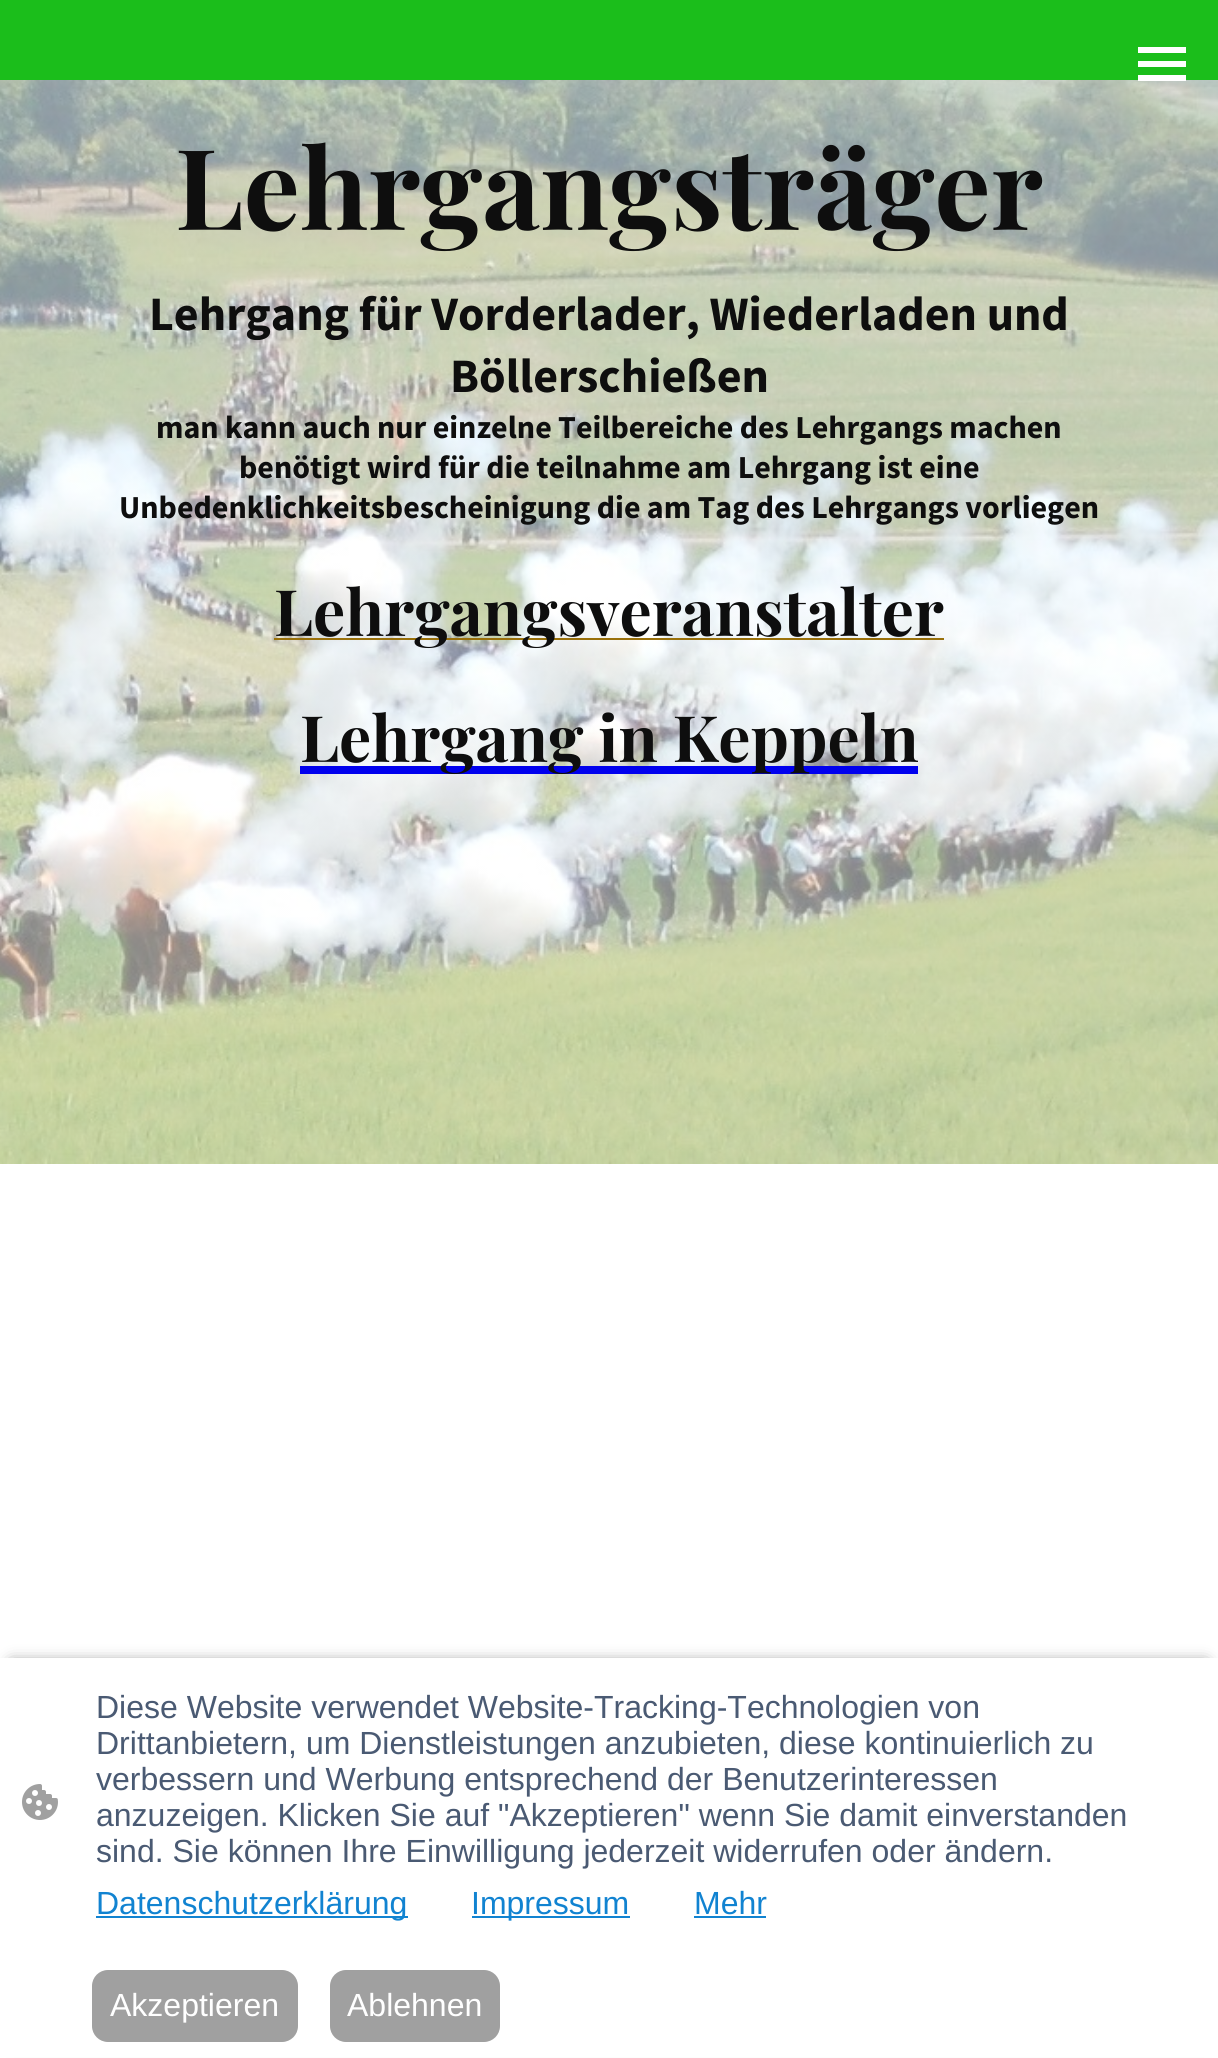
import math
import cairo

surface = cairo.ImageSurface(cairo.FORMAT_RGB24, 1218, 2058)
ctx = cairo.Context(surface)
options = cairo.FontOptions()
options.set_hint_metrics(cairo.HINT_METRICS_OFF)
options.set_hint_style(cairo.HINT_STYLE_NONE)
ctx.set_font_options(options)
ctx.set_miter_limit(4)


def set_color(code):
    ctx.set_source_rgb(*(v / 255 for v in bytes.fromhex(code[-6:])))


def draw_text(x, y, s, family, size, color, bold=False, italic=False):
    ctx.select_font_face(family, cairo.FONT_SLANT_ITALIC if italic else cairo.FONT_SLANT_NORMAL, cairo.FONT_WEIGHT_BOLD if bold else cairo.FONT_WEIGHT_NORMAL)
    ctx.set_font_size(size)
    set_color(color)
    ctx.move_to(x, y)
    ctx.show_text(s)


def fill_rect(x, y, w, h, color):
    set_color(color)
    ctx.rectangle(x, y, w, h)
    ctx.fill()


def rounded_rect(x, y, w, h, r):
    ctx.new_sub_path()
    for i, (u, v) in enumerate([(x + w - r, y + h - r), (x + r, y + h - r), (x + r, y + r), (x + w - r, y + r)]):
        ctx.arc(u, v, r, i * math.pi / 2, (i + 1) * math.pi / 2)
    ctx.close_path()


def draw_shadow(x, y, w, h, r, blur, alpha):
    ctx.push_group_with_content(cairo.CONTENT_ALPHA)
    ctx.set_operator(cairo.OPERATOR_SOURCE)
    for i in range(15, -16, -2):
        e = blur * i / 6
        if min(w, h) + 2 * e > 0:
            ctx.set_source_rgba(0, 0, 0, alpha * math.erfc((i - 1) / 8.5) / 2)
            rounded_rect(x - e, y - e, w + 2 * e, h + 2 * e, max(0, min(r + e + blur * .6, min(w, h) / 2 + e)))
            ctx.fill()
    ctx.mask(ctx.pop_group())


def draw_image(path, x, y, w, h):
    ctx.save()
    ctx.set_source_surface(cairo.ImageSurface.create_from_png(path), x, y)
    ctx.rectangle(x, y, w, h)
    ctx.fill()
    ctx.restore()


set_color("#ffffff")
ctx.paint()
fill_rect(0, 0, 1218, 80, "#1bbe1b")
fill_rect(1138, 47, 48, 6, "#ffffff")
fill_rect(1138, 61, 48, 6, "#ffffff")
draw_image("assets/img1.png", 0, 80, 1218, 1084)
fill_rect(1138, 75, 48, 6, "#ffffff")
draw_text(175, 230, "Lehrgangsträger", "Playfair Display", 112, "#0e0e0e", bold=True)
draw_text(149, 330, "Lehrgang für Vorderlader, Wiederladen und", "Source Sans Pro", 48, "#0e0e0e", bold=True)
draw_text(450, 392, "Böllerschießen", "Source Sans Pro", 48, "#0e0e0e", bold=True)
draw_text(156, 438, "man kann auch nur einzelne Teilbereiche des Lehrgangs machen", "Source Sans Pro", 32, "#0e0e0e", bold=True)
draw_text(239, 478, "benötigt wird für die teilnahme am Lehrgang ist eine", "Source Sans Pro", 32, "#0e0e0e", bold=True)
draw_text(119, 518, "Unbedenklichkeitsbescheinigung die am Tag des Lehrgangs vorliegen", "Source Sans Pro", 32, "#0e0e0e", bold=True)
fill_rect(274, 638, 670, 2, "#99700a")
draw_text(274, 636, "Lehrgangsveranstalter", "Playfair Display", 64, "#0e0e0e", bold=True)
fill_rect(300, 766, 618, 8, "#0000ee")
draw_text(300, 762, "Lehrgang in Keppeln", "Playfair Display", 64, "#0e0e0e", bold=True)
set_color("#000000")
draw_shadow(12, 1664, 1194, 376, 0, 8, 0.63)
fill_rect(0, 1658, 1218, 399, "#ffffff")
draw_image("assets/img2.png", 22, 1784, 36, 36)
draw_text(96, 1718, "Diese Website verwendet Website-Tracking-Technologien von", "Liberation Sans", 32, "#4a5a73")
draw_text(96, 1754, "Drittanbietern, um Dienstleistungen anzubieten, diese kontinuierlich zu", "Liberation Sans", 32, "#4a5a73")
draw_text(96, 1790, "verbessern und Werbung entsprechend der Benutzerinteressen", "Liberation Sans", 32, "#4a5a73")
draw_text(96, 1826, "anzuzeigen. Klicken Sie auf \"Akzeptieren\" wenn Sie damit einverstanden", "Liberation Sans", 32, "#4a5a73")
draw_text(96, 1862, "sind. Sie können Ihre Einwilligung jederzeit widerrufen oder ändern.", "Liberation Sans", 32, "#4a5a73")
fill_rect(96, 1916, 312, 2, "#1183d1")
draw_text(96, 1914, "Datenschutzerklärung", "Liberation Sans", 32, "#1183d1")
fill_rect(472, 1916, 158, 2, "#1183d1")
draw_text(471, 1914, "Impressum", "Liberation Sans", 32, "#1183d1")
draw_text(694, 1914, "Mehr", "Liberation Sans", 32, "#1183d1")
fill_rect(694, 1916, 72, 2, "#1183d1")
set_color("#a0a0a0")
rounded_rect(93, 1971, 204, 70, 15)
ctx.fill_preserve()
ctx.stroke()
draw_text(110, 2016, "Akzeptieren", "Liberation Sans", 32, "#ffffff")
set_color("#a0a0a0")
rounded_rect(331, 1971, 168, 70, 15)
ctx.fill_preserve()
ctx.stroke()
draw_text(347, 2016, "Ablehnen", "Liberation Sans", 32, "#ffffff")
surface.write_to_png("output.png")
